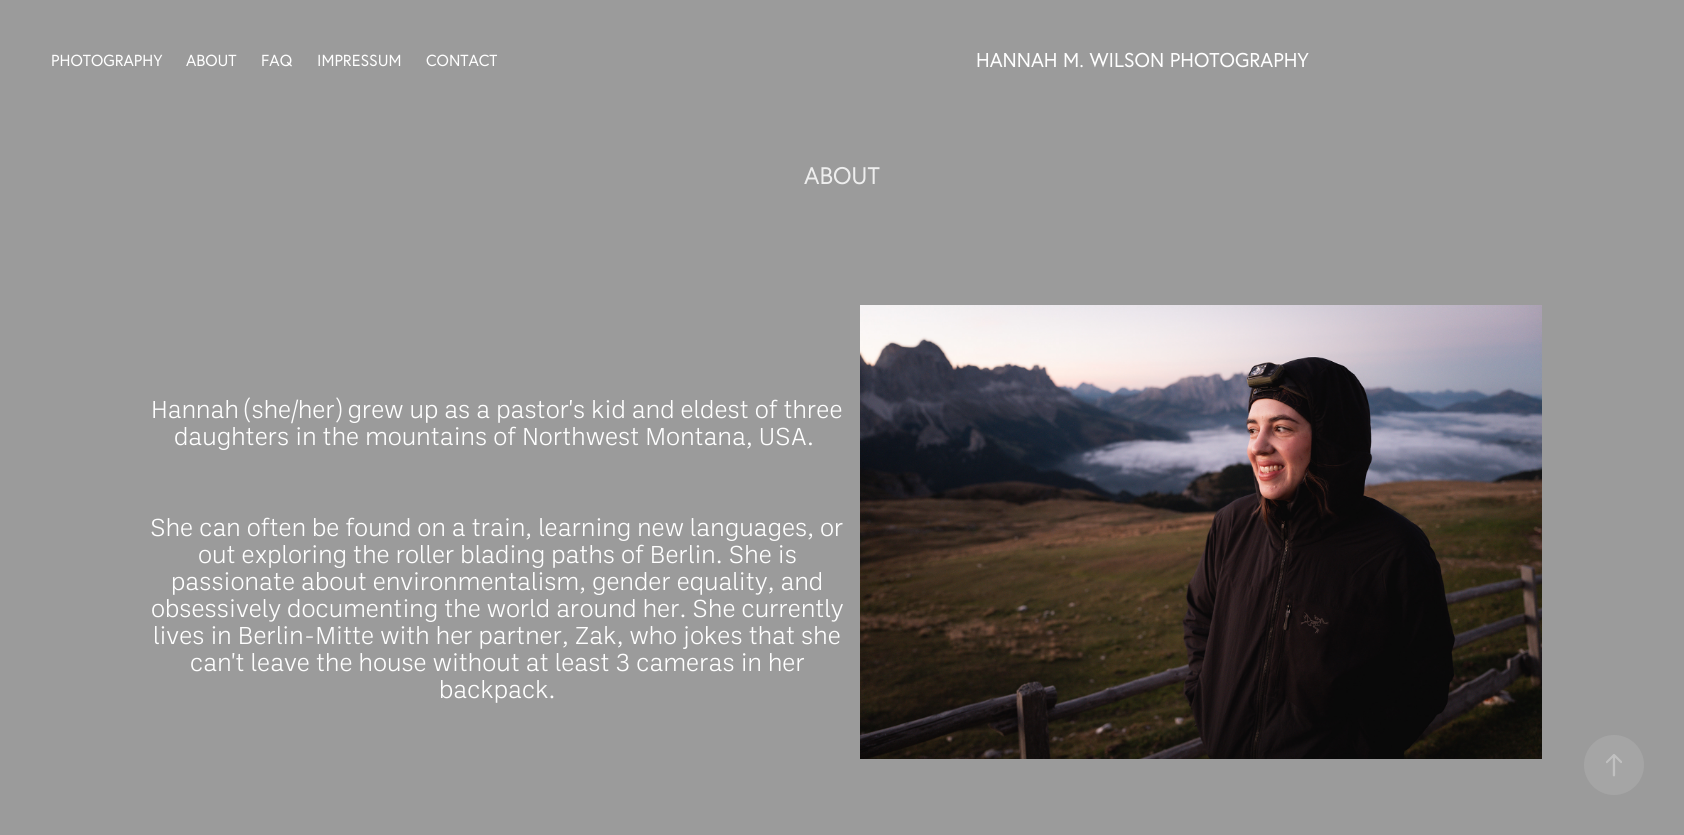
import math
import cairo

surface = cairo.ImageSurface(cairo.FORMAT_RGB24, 1684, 835)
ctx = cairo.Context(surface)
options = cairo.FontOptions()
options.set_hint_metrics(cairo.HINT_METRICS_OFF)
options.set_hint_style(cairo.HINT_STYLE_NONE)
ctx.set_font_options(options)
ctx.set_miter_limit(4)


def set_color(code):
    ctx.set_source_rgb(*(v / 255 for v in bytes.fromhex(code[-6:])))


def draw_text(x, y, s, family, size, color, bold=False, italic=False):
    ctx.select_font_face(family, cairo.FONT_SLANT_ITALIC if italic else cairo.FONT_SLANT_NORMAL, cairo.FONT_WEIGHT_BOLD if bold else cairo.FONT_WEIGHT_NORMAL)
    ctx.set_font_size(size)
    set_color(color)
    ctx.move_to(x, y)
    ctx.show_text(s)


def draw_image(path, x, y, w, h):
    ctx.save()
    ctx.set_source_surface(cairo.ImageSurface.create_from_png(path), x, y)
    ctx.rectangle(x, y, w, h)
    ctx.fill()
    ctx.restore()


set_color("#9b9b9b")
ctx.paint()
draw_text(51, 66, "PHOTOGRAPHY", "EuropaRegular", 16, "#ffffff")
draw_text(186, 66, "ABOUT", "EuropaRegular", 16, "#ffffff")
draw_text(261, 66, "FAQ", "EuropaRegular", 16, "#ffffff")
draw_text(317, 66, "IMPRESSUM", "EuropaRegular", 16, "#ffffff")
draw_text(426, 66, "CONTACT", "EuropaRegular", 16, "#ffffff")
draw_text(976, 67, "HANNAH M. WILSON PHOTOGRAPHY", "EuropaRegular", 20, "#ffffff")
draw_text(804, 184, "ABOUT", "EuropaRegular", 24, "#eeeeee")
draw_text(151, 418, "Hannah (she/her) grew up as a pastor's kid and eldest of three", "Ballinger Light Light", 25, "#ffffff")
draw_text(174, 445, "daughters in the mountains of Northwest Montana, USA.", "Ballinger Light Light", 25, "#ffffff")
draw_text(150, 536, "She can often be found on a train, learning new languages, or", "Ballinger Light Light", 25, "#ffffff")
draw_text(198, 563, "out exploring the roller blading paths of Berlin. She is", "Ballinger Light Light", 25, "#ffffff")
draw_text(171, 590, "passionate about environmentalism, gender equality, and", "Ballinger Light Light", 25, "#ffffff")
draw_text(151, 617, "obsessively documenting the world around her. She currently", "Ballinger Light Light", 25, "#ffffff")
draw_text(153, 644, "lives in Berlin-Mitte with her partner, Zak, who jokes that she", "Ballinger Light Light", 25, "#ffffff")
draw_text(190, 671, "can't leave the house without at least 3 cameras in her", "Ballinger Light Light", 25, "#ffffff")
draw_text(439, 698, "backpack.", "Ballinger Light Light", 25, "#ffffff")
draw_image("assets/img1.png", 860, 305, 682, 454)
set_color("#a5a5a5")
ctx.arc(1614, 765, 30, 0, 2 * math.pi)
ctx.fill()
draw_image("assets/img2.png", 1606, 754, 16, 23)
surface.write_to_png("output.png")
